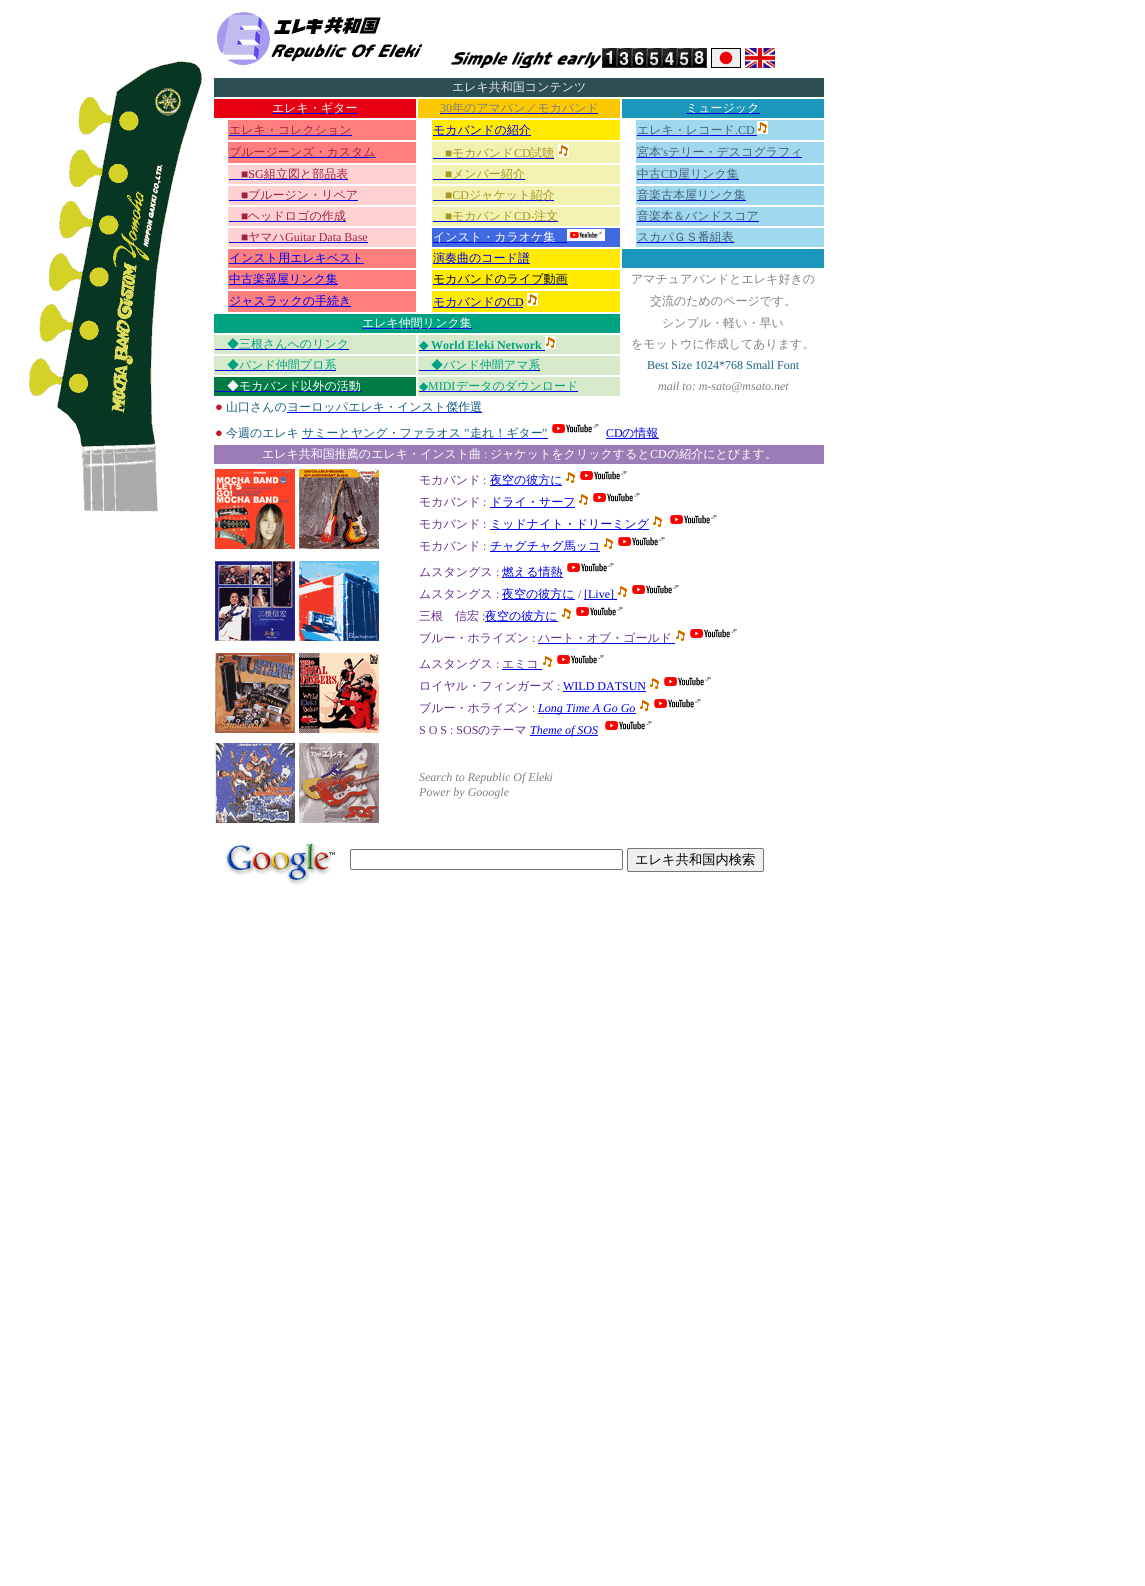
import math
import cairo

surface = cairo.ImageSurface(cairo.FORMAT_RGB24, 1145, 1586)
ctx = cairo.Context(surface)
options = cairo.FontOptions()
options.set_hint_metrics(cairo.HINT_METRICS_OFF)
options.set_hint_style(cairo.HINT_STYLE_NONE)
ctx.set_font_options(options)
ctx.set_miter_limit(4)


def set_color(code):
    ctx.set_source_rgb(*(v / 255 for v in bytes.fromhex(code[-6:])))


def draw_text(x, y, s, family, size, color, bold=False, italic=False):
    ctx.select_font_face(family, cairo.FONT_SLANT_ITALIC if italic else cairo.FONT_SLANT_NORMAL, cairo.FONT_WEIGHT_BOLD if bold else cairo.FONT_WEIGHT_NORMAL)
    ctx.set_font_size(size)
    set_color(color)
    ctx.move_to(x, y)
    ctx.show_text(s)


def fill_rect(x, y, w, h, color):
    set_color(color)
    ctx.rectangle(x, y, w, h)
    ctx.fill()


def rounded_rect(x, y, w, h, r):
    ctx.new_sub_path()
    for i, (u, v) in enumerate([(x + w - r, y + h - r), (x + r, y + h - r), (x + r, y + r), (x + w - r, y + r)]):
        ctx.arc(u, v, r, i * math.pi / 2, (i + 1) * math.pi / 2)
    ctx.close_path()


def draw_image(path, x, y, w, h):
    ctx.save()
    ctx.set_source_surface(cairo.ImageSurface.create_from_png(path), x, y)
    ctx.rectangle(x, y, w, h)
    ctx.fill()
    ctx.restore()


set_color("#ffffff")
ctx.paint()
draw_image("assets/img1.png", 29, 61, 173, 451)
draw_image("assets/img2.png", 217, 12, 206, 53)
draw_image("assets/img3.png", 451, 52, 150, 16)
draw_image("assets/img4.png", 602, 48, 15, 20)
draw_image("assets/img5.png", 617, 48, 15, 20)
draw_image("assets/img6.png", 632, 48, 15, 20)
draw_image("assets/img7.png", 647, 48, 15, 20)
draw_image("assets/img8.png", 662, 48, 15, 20)
draw_image("assets/img7.png", 677, 48, 15, 20)
draw_image("assets/img9.png", 692, 48, 15, 20)
draw_image("assets/img10.png", 711, 48, 30, 20)
draw_image("assets/img11.png", 745, 48, 30, 20)
fill_rect(214, 78, 610, 19, "#2c4f54")
draw_text(452, 91, "エレキ共和国コンテンツ", "WenQuanYi Zen Hei Medium", 12, "#e7e7eb")
fill_rect(214, 99, 202, 19, "#e60012")
fill_rect(272, 113, 86, 1, "#0000ee")
draw_text(272, 112, "エレキ・ギター", "WenQuanYi Zen Hei Medium", 12, "#ffffff")
fill_rect(418, 99, 202, 19, "#fcc800")
draw_text(440, 112, "30", "Liberation Serif", 12, "#808080")
fill_rect(440, 113, 158, 1, "#0000ee")
draw_text(452, 112, "年のアマバン／モカバンド", "WenQuanYi Zen Hei Medium", 12, "#808080")
fill_rect(622, 99, 202, 19, "#1a97ba")
fill_rect(686, 113, 74, 1, "#0000ee")
draw_text(686, 112, "ミュージック", "WenQuanYi Zen Hei Medium", 12, "#ffffff")
fill_rect(228, 120, 188, 20, "#ff7f7f")
fill_rect(229, 135, 123, 1, "#0000ee")
draw_text(229, 134, "エレキ・コレクション", "WenQuanYi Zen Hei Medium", 12, "#a22041")
fill_rect(432, 120, 188, 20, "#ffea00")
fill_rect(433, 135, 98, 1, "#0000ee")
draw_text(433, 134, "モカバンドの紹介", "WenQuanYi Zen Hei Medium", 12, "#0000ee")
fill_rect(636, 120, 188, 20, "#a0d8ef")
fill_rect(637, 135, 120, 1, "#0000ee")
draw_text(637, 134, "エレキ・レコード", "WenQuanYi Zen Hei Medium", 12, "#44617b")
draw_text(735, 134, ".CD", "Liberation Serif", 12, "#44617b")
draw_image("assets/img12.png", 757, 121, 11, 13)
fill_rect(228, 142, 188, 21, "#ff7f7f")
fill_rect(229, 157, 147, 1, "#0000ee")
draw_text(229, 156, "ブルージーンズ・カスタム", "WenQuanYi Zen Hei Medium", 12, "#a22041")
fill_rect(432, 142, 188, 21, "#f2f2b0")
draw_text(445, 157, "■", "Liberation Serif", 12, "#a69425")
fill_rect(433, 158, 121, 1, "#0000ee")
draw_text(452, 157, "モカバンド", "WenQuanYi Zen Hei Medium", 12, "#a69425")
draw_text(514, 157, "CD", "Liberation Serif", 12, "#a69425")
draw_text(530, 157, "試聴", "WenQuanYi Zen Hei Medium", 12, "#a69425")
draw_image("assets/img12.png", 558, 144, 11, 13)
fill_rect(636, 142, 188, 21, "#a0d8ef")
fill_rect(637, 157, 165, 1, "#0000ee")
draw_text(637, 156, "宮本", "WenQuanYi Zen Hei Medium", 12, "#44617b")
draw_text(661, 156, "'s", "Liberation Serif", 12, "#44617b")
draw_text(668, 156, "テリー・デスコグラフィ", "WenQuanYi Zen Hei Medium", 12, "#44617b")
fill_rect(228, 165, 188, 19, "#ffd1d1")
draw_text(241, 178, "■SG", "Liberation Serif", 12, "#a22041")
fill_rect(229, 179, 119, 1, "#0000ee")
draw_text(264, 178, "組立図と部品表", "WenQuanYi Zen Hei Medium", 12, "#a22041")
fill_rect(432, 165, 188, 19, "#f2f2b0")
draw_text(445, 178, "■", "Liberation Serif", 12, "#a69425")
fill_rect(433, 179, 92, 1, "#0000ee")
draw_text(452, 178, "メンバー紹介", "WenQuanYi Zen Hei Medium", 12, "#a69425")
fill_rect(636, 165, 188, 19, "#a0d8ef")
fill_rect(637, 179, 102, 1, "#0000ee")
draw_text(637, 178, "中古", "WenQuanYi Zen Hei Medium", 12, "#44617b")
draw_text(661, 178, "CD", "Liberation Serif", 12, "#44617b")
draw_text(678, 178, "屋リンク集", "WenQuanYi Zen Hei Medium", 12, "#44617b")
fill_rect(228, 186, 188, 19, "#ffd1d1")
draw_text(241, 199, "■", "Liberation Serif", 12, "#a22041")
fill_rect(229, 200, 129, 1, "#0000ee")
draw_text(248, 199, "ブルージン・リペア", "WenQuanYi Zen Hei Medium", 12, "#a22041")
fill_rect(432, 186, 188, 19, "#f2f2b0")
draw_text(445, 199, "■CD", "Liberation Serif", 12, "#a69425")
fill_rect(433, 200, 121, 1, "#0000ee")
draw_text(469, 199, "ジャケット紹介", "WenQuanYi Zen Hei Medium", 12, "#a69425")
fill_rect(636, 186, 188, 19, "#a0d8ef")
fill_rect(637, 200, 109, 1, "#0000ee")
draw_text(637, 199, "音楽古本屋リンク集", "WenQuanYi Zen Hei Medium", 12, "#44617b")
fill_rect(228, 207, 188, 19, "#ffd1d1")
draw_text(241, 220, "■", "Liberation Serif", 12, "#a22041")
fill_rect(229, 221, 117, 1, "#0000ee")
draw_text(248, 220, "ヘッドロゴの作成", "WenQuanYi Zen Hei Medium", 12, "#a22041")
fill_rect(432, 207, 188, 19, "#f2f2b0")
draw_text(445, 220, "■", "Liberation Serif", 12, "#a69425")
fill_rect(433, 221, 125, 1, "#0000ee")
draw_text(452, 220, "モカバンド", "WenQuanYi Zen Hei Medium", 12, "#a69425")
draw_text(514, 220, "CD-", "Liberation Serif", 12, "#a69425")
draw_text(534, 220, "注文", "WenQuanYi Zen Hei Medium", 12, "#a69425")
fill_rect(636, 207, 188, 19, "#a0d8ef")
fill_rect(637, 221, 122, 1, "#0000ee")
draw_text(637, 220, "音楽本＆バンドスコア", "WenQuanYi Zen Hei Medium", 12, "#44617b")
fill_rect(228, 228, 188, 19, "#ffd1d1")
draw_text(241, 241, "■", "Liberation Serif", 12, "#a22041")
fill_rect(229, 242, 139, 1, "#0000ee")
draw_text(248, 241, "ヤマハ", "WenQuanYi Zen Hei Medium", 12, "#a22041")
draw_text(285, 241, "Guitar Data Base", "Liberation Serif", 12, "#a22041")
fill_rect(432, 228, 188, 19, "#4169e1")
fill_rect(433, 242, 134, 1, "#0000ee")
draw_text(433, 241, "インスト・カラオケ集", "WenQuanYi Zen Hei Medium", 12, "#ffffff")
draw_image("assets/img13.png", 567, 229, 38, 12)
fill_rect(636, 228, 188, 19, "#a0d8ef")
fill_rect(637, 242, 97, 1, "#0000ee")
draw_text(637, 241, "スカパＧＳ番組表", "WenQuanYi Zen Hei Medium", 12, "#44617b")
fill_rect(228, 249, 188, 19, "#ff7f7f")
fill_rect(229, 263, 135, 1, "#0000ee")
draw_text(229, 262, "インスト用エレキベスト", "WenQuanYi Zen Hei Medium", 12, "#0000ee")
fill_rect(432, 249, 188, 19, "#ffea00")
fill_rect(433, 263, 97, 1, "#0000ee")
draw_text(433, 262, "演奏曲のコード譜", "WenQuanYi Zen Hei Medium", 12, "#0000ee")
fill_rect(622, 249, 202, 19, "#1a97ba")
fill_rect(228, 270, 188, 19, "#ff7f7f")
fill_rect(229, 284, 109, 1, "#0000ee")
draw_text(229, 283, "中古楽器屋リンク集", "WenQuanYi Zen Hei Medium", 12, "#0000ee")
fill_rect(432, 270, 188, 19, "#ffea00")
fill_rect(433, 284, 135, 1, "#0000ee")
draw_text(433, 283, "モカバンドのライブ動画", "WenQuanYi Zen Hei Medium", 12, "#000000")
draw_text(631, 283, "アマチュアバンドとエレキ好きの", "WenQuanYi Zen Hei Medium", 12, "#808080")
fill_rect(228, 291, 188, 21, "#ff7f7f")
fill_rect(229, 306, 122, 1, "#0000ee")
draw_text(229, 305, "ジャスラックの手続き", "WenQuanYi Zen Hei Medium", 12, "#0000ee")
fill_rect(432, 291, 188, 21, "#ffea00")
fill_rect(433, 307, 90, 1, "#0000ee")
draw_text(433, 306, "モカバンドの", "WenQuanYi Zen Hei Medium", 12, "#0000ee")
draw_text(507, 306, "CD", "Liberation Serif", 12, "#0000ee")
draw_image("assets/img12.png", 527, 293, 11, 13)
draw_text(650, 305, "交流のためのページです。", "WenQuanYi Zen Hei Medium", 12, "#808080")
fill_rect(214, 314, 406, 19, "#00a381")
fill_rect(362, 328, 110, 1, "#0000ee")
draw_text(362, 327, "エレキ仲間リンク集", "WenQuanYi Zen Hei Medium", 12, "#ffffff")
draw_text(662, 327, "シンプル・軽い・早い", "WenQuanYi Zen Hei Medium", 12, "#808080")
fill_rect(214, 335, 202, 19, "#d6e9ca")
fill_rect(215, 349, 134, 1, "#0000ee")
draw_text(227, 348, "◆三根さんへのリンク", "WenQuanYi Zen Hei Medium", 12, "#00a381")
fill_rect(418, 335, 202, 19, "#d6e9ca")
fill_rect(419, 350, 126, 1, "#0000ee")
draw_text(419, 349, "◆", "DejaVu Sans", 12, "#00a381", bold=True)
draw_text(431, 349, "World Eleki Network", "Liberation Serif", 12, "#00a381", bold=True)
draw_image("assets/img12.png", 545, 336, 11, 13)
draw_text(631, 348, "をモットウに作成してあります。", "WenQuanYi Zen Hei Medium", 12, "#808080")
fill_rect(214, 356, 202, 19, "#d6e9ca")
fill_rect(215, 370, 121, 1, "#0000ee")
draw_text(227, 369, "◆バンド仲間プロ系", "WenQuanYi Zen Hei Medium", 12, "#00a381")
fill_rect(418, 356, 202, 19, "#d6e9ca")
fill_rect(419, 370, 121, 1, "#0000ee")
draw_text(431, 369, "◆バンド仲間アマ系", "WenQuanYi Zen Hei Medium", 12, "#00a381")
draw_text(647, 369, "Best Size 1024*768 Small Font", "Liberation Serif", 12, "#165e83")
fill_rect(214, 377, 202, 19, "#007b43")
fill_rect(215, 391, 146, 1, "#0000ee")
draw_text(227, 390, "◆モカバンド以外の活動", "WenQuanYi Zen Hei Medium", 12, "#ffffff")
fill_rect(418, 377, 202, 19, "#d6e9ca")
fill_rect(419, 391, 159, 1, "#0000ee")
draw_text(419, 390, "◆", "DejaVu Sans", 12, "#00a381")
draw_text(428, 390, "MIDI", "Liberation Serif", 12, "#00a381")
draw_text(456, 390, "データのダウンロード", "WenQuanYi Zen Hei Medium", 12, "#00a381")
draw_text(658, 390, "mail to: m-sato@msato.net", "Liberation Serif", 12, "#808080", italic=True)
draw_text(215, 411, "●", "Liberation Serif", 13, "#c9171e")
draw_text(226, 411, "山口さんの", "WenQuanYi Zen Hei Medium", 12, "#165e83")
fill_rect(287, 412, 195, 1, "#0000ee")
draw_text(287, 411, "ヨーロッパエレキ・インスト傑作選", "WenQuanYi Zen Hei Medium", 12, "#165e83")
draw_text(215, 437, "●", "Liberation Serif", 13, "#c9171e")
draw_text(226, 437, "今週のエレキ", "WenQuanYi Zen Hei Medium", 12, "#165e83")
fill_rect(302, 438, 246, 1, "#0000ee")
draw_text(302, 437, "サミーとヤング・ファラオス", "WenQuanYi Zen Hei Medium", 12, "#165e83")
draw_text(464, 437, "”", "Liberation Serif", 12, "#165e83")
draw_text(470, 437, "走れ！ギター", "WenQuanYi Zen Hei Medium", 12, "#165e83")
draw_text(542, 437, "”", "Liberation Serif", 12, "#165e83")
draw_image("assets/img14.png", 552, 424, 47, 9)
draw_text(606, 437, "CD", "Liberation Serif", 12, "#0000ee")
fill_rect(606, 438, 53, 1, "#0000ee")
draw_text(622, 437, "の情報", "WenQuanYi Zen Hei Medium", 12, "#0000ee")
fill_rect(214, 445, 610, 19, "#9b7cb6")
draw_text(262, 458, "エレキ共和国推薦のエレキ・インスト曲", "WenQuanYi Zen Hei Medium", 12, "#ffffff")
draw_text(484, 458, ":", "Liberation Serif", 12, "#ffffff")
draw_text(490, 458, "ジャケットをクリックすると", "WenQuanYi Zen Hei Medium", 12, "#ffffff")
draw_text(650, 458, "CD", "Liberation Serif", 12, "#ffffff")
draw_text(667, 458, "の紹介にとびます。", "WenQuanYi Zen Hei Medium", 12, "#ffffff")
draw_image("assets/img15.png", 215, 469, 80, 80)
draw_image("assets/img16.png", 299, 469, 80, 80)
draw_text(419, 484, "モカバンド", "WenQuanYi Zen Hei Medium", 12, "#65318e")
draw_text(483, 484, ":", "Liberation Serif", 12, "#65318e")
fill_rect(490, 485, 72, 1, "#0000ee")
draw_text(490, 484, "夜空の彼方に", "WenQuanYi Zen Hei Medium", 12, "#0000ee")
draw_image("assets/img17.png", 566, 472, 9, 11)
draw_image("assets/img14.png", 580, 471, 47, 9)
draw_text(419, 506, "モカバンド", "WenQuanYi Zen Hei Medium", 12, "#65318e")
draw_text(483, 506, ":", "Liberation Serif", 12, "#65318e")
fill_rect(490, 507, 85, 1, "#0000ee")
draw_text(490, 506, "ドライ・サーフ", "WenQuanYi Zen Hei Medium", 12, "#0000ee")
draw_image("assets/img17.png", 579, 494, 9, 11)
draw_image("assets/img14.png", 593, 493, 47, 9)
draw_text(419, 528, "モカバンド", "WenQuanYi Zen Hei Medium", 12, "#65318e")
draw_text(483, 528, ":", "Liberation Serif", 12, "#65318e")
fill_rect(490, 529, 159, 1, "#0000ee")
draw_text(490, 528, "ミッドナイト・ドリーミング", "WenQuanYi Zen Hei Medium", 12, "#0000ee")
draw_image("assets/img17.png", 653, 516, 9, 11)
draw_image("assets/img14.png", 670, 515, 47, 9)
draw_text(419, 550, "モカバンド", "WenQuanYi Zen Hei Medium", 12, "#65318e")
draw_text(483, 550, ":", "Liberation Serif", 12, "#65318e")
fill_rect(490, 551, 110, 1, "#0000ee")
draw_text(490, 550, "チャグチャグ馬ッコ", "WenQuanYi Zen Hei Medium", 12, "#0000ee")
draw_image("assets/img17.png", 604, 538, 9, 11)
draw_image("assets/img14.png", 618, 537, 47, 9)
draw_image("assets/img18.png", 215, 561, 80, 80)
draw_image("assets/img19.png", 299, 561, 80, 80)
draw_text(419, 576, "ムスタングス", "WenQuanYi Zen Hei Medium", 12, "#65318e")
draw_text(496, 576, ":", "Liberation Serif", 12, "#65318e")
fill_rect(502, 577, 61, 1, "#0000ee")
draw_text(502, 576, "燃える情熱", "WenQuanYi Zen Hei Medium", 12, "#0000ee")
draw_image("assets/img14.png", 567, 563, 47, 9)
draw_text(419, 598, "ムスタングス", "WenQuanYi Zen Hei Medium", 12, "#65318e")
draw_text(496, 598, ":", "Liberation Serif", 12, "#65318e")
fill_rect(502, 599, 73, 1, "#0000ee")
draw_text(502, 598, "夜空の彼方に", "WenQuanYi Zen Hei Medium", 12, "#0000ee")
draw_text(578, 598, "/", "Liberation Serif", 12, "#65318e")
fill_rect(584, 599, 33, 1, "#0000ee")
draw_text(584, 598, "[Live]", "Liberation Serif", 12, "#0000ee")
draw_image("assets/img17.png", 618, 586, 9, 11)
draw_image("assets/img14.png", 632, 585, 47, 9)
draw_text(419, 620, "三根　信宏", "WenQuanYi Zen Hei Medium", 12, "#65318e")
draw_text(482, 620, ":", "Liberation Serif", 12, "#65318e")
fill_rect(485, 621, 73, 1, "#0000ee")
draw_text(485, 620, "夜空の彼方に", "WenQuanYi Zen Hei Medium", 12, "#0000ee")
draw_image("assets/img17.png", 562, 608, 9, 11)
draw_image("assets/img14.png", 576, 607, 47, 9)
draw_text(419, 642, "ブルー・ホライズン", "WenQuanYi Zen Hei Medium", 12, "#65318e")
draw_text(532, 642, ":", "Liberation Serif", 12, "#65318e")
fill_rect(538, 643, 137, 1, "#0000ee")
draw_text(538, 642, "ハート・オブ・ゴールド", "WenQuanYi Zen Hei Medium", 12, "#65318e")
draw_image("assets/img17.png", 676, 630, 9, 11)
draw_image("assets/img14.png", 690, 629, 47, 9)
draw_image("assets/img20.png", 215, 653, 80, 80)
draw_image("assets/img21.png", 299, 653, 80, 80)
draw_text(419, 668, "ムスタングス", "WenQuanYi Zen Hei Medium", 12, "#65318e")
draw_text(496, 668, ":", "Liberation Serif", 12, "#65318e")
fill_rect(502, 669, 40, 1, "#0000ee")
draw_text(502, 668, "エミコ", "WenQuanYi Zen Hei Medium", 12, "#65318e")
draw_image("assets/img17.png", 543, 656, 9, 11)
draw_image("assets/img14.png", 557, 655, 47, 9)
draw_text(419, 690, "ロイヤル・フィンガーズ", "WenQuanYi Zen Hei Medium", 12, "#65318e")
draw_text(557, 690, ":", "Liberation Serif", 12, "#65318e")
draw_text(563, 690, "WILD DATSUN", "Liberation Serif", 12, "#0000ee")
fill_rect(563, 691, 83, 1, "#0000ee")
draw_image("assets/img17.png", 650, 678, 9, 11)
draw_image("assets/img14.png", 664, 677, 47, 9)
draw_text(419, 712, "ブルー・ホライズン", "WenQuanYi Zen Hei Medium", 12, "#65318e")
draw_text(532, 712, ":", "Liberation Serif", 12, "#65318e")
fill_rect(538, 713, 98, 1, "#0000ee")
draw_text(538, 712, "Long Time A Go Go", "Liberation Serif", 12, "#0000ee", italic=True)
draw_image("assets/img17.png", 640, 700, 9, 11)
draw_image("assets/img14.png", 654, 699, 47, 9)
draw_text(419, 734, "S O S : SOS", "Liberation Serif", 12, "#65318e")
draw_text(478, 734, "のテーマ", "WenQuanYi Zen Hei Medium", 12, "#65318e")
fill_rect(530, 735, 68, 1, "#0000ee")
draw_text(530, 734, "Theme of SOS", "Liberation Serif", 12, "#0000ee", italic=True)
draw_image("assets/img14.png", 605, 721, 47, 9)
draw_image("assets/img22.png", 215, 743, 80, 80)
draw_image("assets/img23.png", 299, 743, 80, 80)
draw_text(419, 781, "Search to Republic Of Eleki", "Liberation Serif", 12, "#808080", italic=True)
draw_text(419, 796, "Power by Gooogle", "Liberation Serif", 12, "#808080", italic=True)
draw_image("assets/img24.png", 225, 843, 110, 42)
rounded_rect(350.5, 849.5, 272, 20, 1.5)
set_color("#767676")
ctx.set_line_width(1)
ctx.stroke()
set_color("#efefef")
rounded_rect(627.5, 848.5, 136, 23, 1.5)
ctx.fill_preserve()
set_color("#767676")
ctx.stroke()
draw_text(635, 864, "エレキ共和国内検索", "WenQuanYi Zen Hei Medium", 13.25, "#000000")
surface.write_to_png("output.png")
